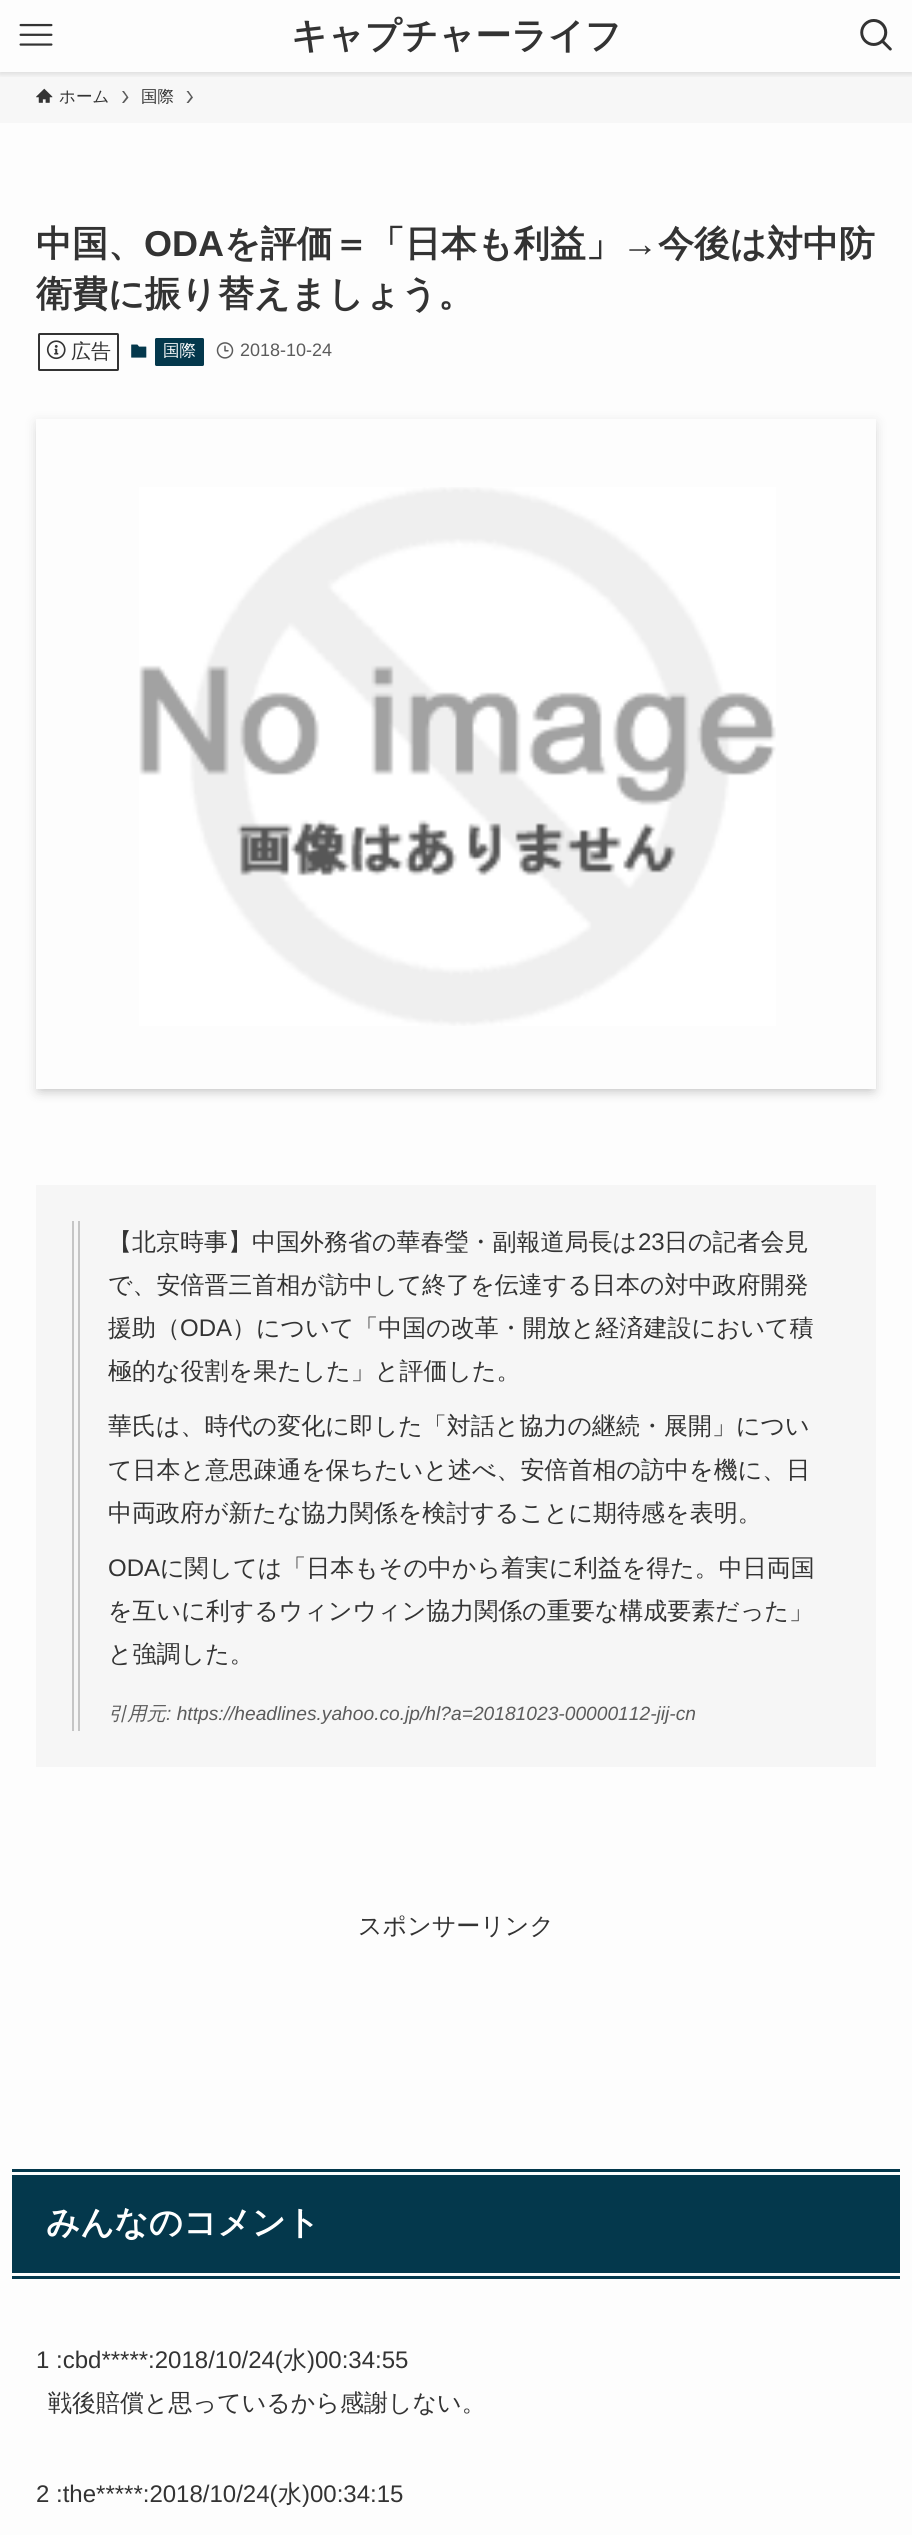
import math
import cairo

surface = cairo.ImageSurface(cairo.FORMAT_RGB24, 912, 2535)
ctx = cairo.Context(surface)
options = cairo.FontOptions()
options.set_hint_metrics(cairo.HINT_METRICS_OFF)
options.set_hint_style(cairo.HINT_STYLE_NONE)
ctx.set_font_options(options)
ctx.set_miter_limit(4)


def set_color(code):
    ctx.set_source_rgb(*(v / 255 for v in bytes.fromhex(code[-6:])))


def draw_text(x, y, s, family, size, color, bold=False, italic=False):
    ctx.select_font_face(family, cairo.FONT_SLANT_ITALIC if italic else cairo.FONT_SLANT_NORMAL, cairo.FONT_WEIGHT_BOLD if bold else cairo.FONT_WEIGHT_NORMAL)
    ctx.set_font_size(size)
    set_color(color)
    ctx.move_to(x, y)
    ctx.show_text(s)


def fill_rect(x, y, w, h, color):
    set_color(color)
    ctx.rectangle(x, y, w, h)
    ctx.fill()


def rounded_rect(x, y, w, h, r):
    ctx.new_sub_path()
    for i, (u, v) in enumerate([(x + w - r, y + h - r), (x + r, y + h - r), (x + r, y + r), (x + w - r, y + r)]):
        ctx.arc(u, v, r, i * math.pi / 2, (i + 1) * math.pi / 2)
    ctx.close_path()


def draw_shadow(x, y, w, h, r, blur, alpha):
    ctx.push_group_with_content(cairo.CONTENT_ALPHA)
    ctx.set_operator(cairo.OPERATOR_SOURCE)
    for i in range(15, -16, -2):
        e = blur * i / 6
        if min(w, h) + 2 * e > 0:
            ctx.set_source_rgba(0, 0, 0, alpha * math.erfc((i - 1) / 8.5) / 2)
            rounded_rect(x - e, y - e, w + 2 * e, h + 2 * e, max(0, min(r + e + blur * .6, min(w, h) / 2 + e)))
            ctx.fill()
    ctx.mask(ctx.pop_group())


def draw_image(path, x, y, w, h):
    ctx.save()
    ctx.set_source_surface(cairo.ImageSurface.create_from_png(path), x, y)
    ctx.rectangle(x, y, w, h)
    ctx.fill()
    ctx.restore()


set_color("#fdfdfd")
ctx.paint()
fill_rect(0, 72, 912, 51, "#f7f7f7")
ctx.save()
ctx.rectangle(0, 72, 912, 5)
ctx.clip()
set_color("#000000")
draw_shadow(0, 2, 912, 72, 0, 3, 0.12)
ctx.restore()
draw_image("assets/img1.png", 19, 23, 34, 23)
draw_text(291, 48, "キャプチャーライフ", "WenQuanYi Zen Hei", 36, "#333333", bold=True)
draw_image("assets/img2.png", 860, 19, 32, 32)
draw_image("assets/img3.png", 36, 88, 17, 15)
draw_text(59, 102, "ホーム", "WenQuanYi Zen Hei Medium", 16.5, "#333333")
set_color("#5a5a5a")
ctx.new_path()
ctx.move_to(124, 91)
ctx.line_to(122, 91)
ctx.line_to(126.5, 97)
ctx.line_to(122, 103)
ctx.line_to(124, 103)
ctx.line_to(128.5, 97.5)
ctx.close_path()
ctx.fill()
draw_text(141, 102, "国際", "WenQuanYi Zen Hei Medium", 16.5, "#333333")
set_color("#5a5a5a")
ctx.new_path()
ctx.move_to(188.5, 91)
ctx.line_to(186.5, 91)
ctx.line_to(191, 97)
ctx.line_to(186.5, 103)
ctx.line_to(188.5, 103)
ctx.line_to(193, 97.5)
ctx.close_path()
ctx.fill()
draw_text(36, 256, "中国、", "WenQuanYi Zen Hei", 36, "#333333", bold=True)
draw_text(144, 256, "ODA", "Liberation Sans", 36, "#333333", bold=True)
draw_text(224, 256, "を評価＝「日本も利益」", "WenQuanYi Zen Hei", 36, "#333333", bold=True)
draw_text(622, 256, "→", "Liberation Sans", 36, "#333333", bold=True)
draw_text(658, 256, "今後は対中防", "WenQuanYi Zen Hei", 36, "#333333", bold=True)
draw_text(36, 306, "衛費に振り替えましょう。", "WenQuanYi Zen Hei", 36, "#333333", bold=True)
rounded_rect(39, 334, 79, 36, 0.5)
ctx.stroke()
draw_image("assets/img4.png", 46, 340, 20, 20)
draw_text(71, 358, "広告", "WenQuanYi Zen Hei Medium", 20, "#333333")
draw_image("assets/img5.png", 131, 344, 16, 14)
set_color("#04384c")
rounded_rect(155, 338, 49, 28, 1.5)
ctx.fill()
draw_text(163, 356, "国際", "WenQuanYi Zen Hei Medium", 16.5, "#ffffff")
draw_image("assets/img6.png", 216, 342, 18, 17)
draw_text(240, 356, "2018-10-24", "Liberation Sans", 18, "#5b5b5b")
ctx.save()
ctx.set_fill_rule(cairo.FILL_RULE_EVEN_ODD)
ctx.new_path()
ctx.move_to(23, 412)
ctx.line_to(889, 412)
ctx.line_to(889, 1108)
ctx.line_to(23, 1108)
ctx.close_path()
ctx.move_to(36, 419)
ctx.line_to(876, 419)
ctx.line_to(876, 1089)
ctx.line_to(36, 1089)
ctx.close_path()
ctx.clip()
set_color("#000000")
draw_shadow(42, 431, 828, 658, 0, 6, 0.2)
ctx.restore()
ctx.save()
ctx.set_fill_rule(cairo.FILL_RULE_EVEN_ODD)
ctx.new_path()
ctx.move_to(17, 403)
ctx.line_to(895, 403)
ctx.line_to(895, 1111)
ctx.line_to(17, 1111)
ctx.close_path()
ctx.move_to(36, 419)
ctx.line_to(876, 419)
ctx.line_to(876, 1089)
ctx.line_to(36, 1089)
ctx.close_path()
ctx.clip()
set_color("#000000")
draw_shadow(36, 422, 840, 670, 0, 6, 0.1)
ctx.restore()
draw_image("assets/img7.png", 139, 487, 637, 539)
fill_rect(36, 1185, 840, 582, "#f6f6f6")
fill_rect(78, 1221, 2, 510, "#c5c5c5")
fill_rect(72, 1221, 2, 510, "#c5c5c5")
draw_text(108, 1250, "【北京時事】中国外務省の華春瑩・副報道局長は", "WenQuanYi Zen Hei Medium", 24, "#333333")
draw_text(638, 1250, "23", "Liberation Sans", 24, "#333333")
draw_text(664, 1250, "日の記者会見", "WenQuanYi Zen Hei Medium", 24, "#333333")
draw_text(108, 1293, "で、安倍晋三首相が訪中して終了を伝達する日本の対中政府開発", "WenQuanYi Zen Hei Medium", 24, "#333333")
draw_text(108, 1336, "援助（", "WenQuanYi Zen Hei Medium", 24, "#333333")
draw_text(180, 1336, "ODA", "Liberation Sans", 24, "#333333")
draw_text(232, 1336, "）について「中国の改革・開放と経済建設において積", "WenQuanYi Zen Hei Medium", 24, "#333333")
draw_text(108, 1379, "極的な役割を果たした」と評価した。", "WenQuanYi Zen Hei Medium", 24, "#333333")
draw_text(108, 1434, "華氏は、時代の変化に即した「対話と協力の継続・展開」につい", "WenQuanYi Zen Hei Medium", 24, "#333333")
draw_text(108, 1478, "て日本と意思疎通を保ちたいと述べ、安倍首相の訪中を機に、日", "WenQuanYi Zen Hei Medium", 24, "#333333")
draw_text(108, 1521, "中両政府が新たな協力関係を検討することに期待感を表明。", "WenQuanYi Zen Hei Medium", 24, "#333333")
draw_text(108, 1576, "ODA", "Liberation Sans", 24, "#333333")
draw_text(160, 1576, "に関しては「日本もその中から着実に利益を得た。中日両国", "WenQuanYi Zen Hei Medium", 24, "#333333")
draw_text(108, 1619, "を互いに利するウィンウィン協力関係の重要な構成要素だった」", "WenQuanYi Zen Hei Medium", 24, "#333333")
draw_text(108, 1662, "と強調した。", "WenQuanYi Zen Hei Medium", 24, "#333333")
draw_text(108, 1720, "引用元", "WenQuanYi Zen Hei Medium", 19.2, "#5b5b5b", italic=True)
draw_text(166, 1720, ": https://headlines.yahoo.co.jp/hl?a=20181023-00000112-jij-cn", "Liberation Sans", 19.2, "#5b5b5b", italic=True)
draw_text(358, 1934, "スポンサーリンク", "WenQuanYi Zen Hei Medium", 24, "#333333")
fill_rect(12, 2175, 888, 98, "#04384c")
fill_rect(12, 2169, 888, 3, "#04384c")
fill_rect(12, 2276, 888, 3, "#04384c")
draw_text(46, 2234, "みんなのコメント", "WenQuanYi Zen Hei", 33.5, "#ffffff", bold=True)
draw_text(36, 2368, "1 :cbd*****:2018/10/24(", "Liberation Sans", 24, "#333333")
draw_text(283, 2368, "水", "WenQuanYi Zen Hei Medium", 24, "#333333")
draw_text(307, 2368, ")00:34:55", "Liberation Sans", 24, "#333333")
draw_text(48, 2411, "戦後賠償と思っているから感謝しない。", "WenQuanYi Zen Hei Medium", 24, "#333333")
draw_text(36, 2502, "2 :the*****:2018/10/24(", "Liberation Sans", 24, "#333333")
draw_text(278, 2502, "水", "WenQuanYi Zen Hei Medium", 24, "#333333")
draw_text(302, 2502, ")00:34:15", "Liberation Sans", 24, "#333333")
surface.write_to_png("output.png")
